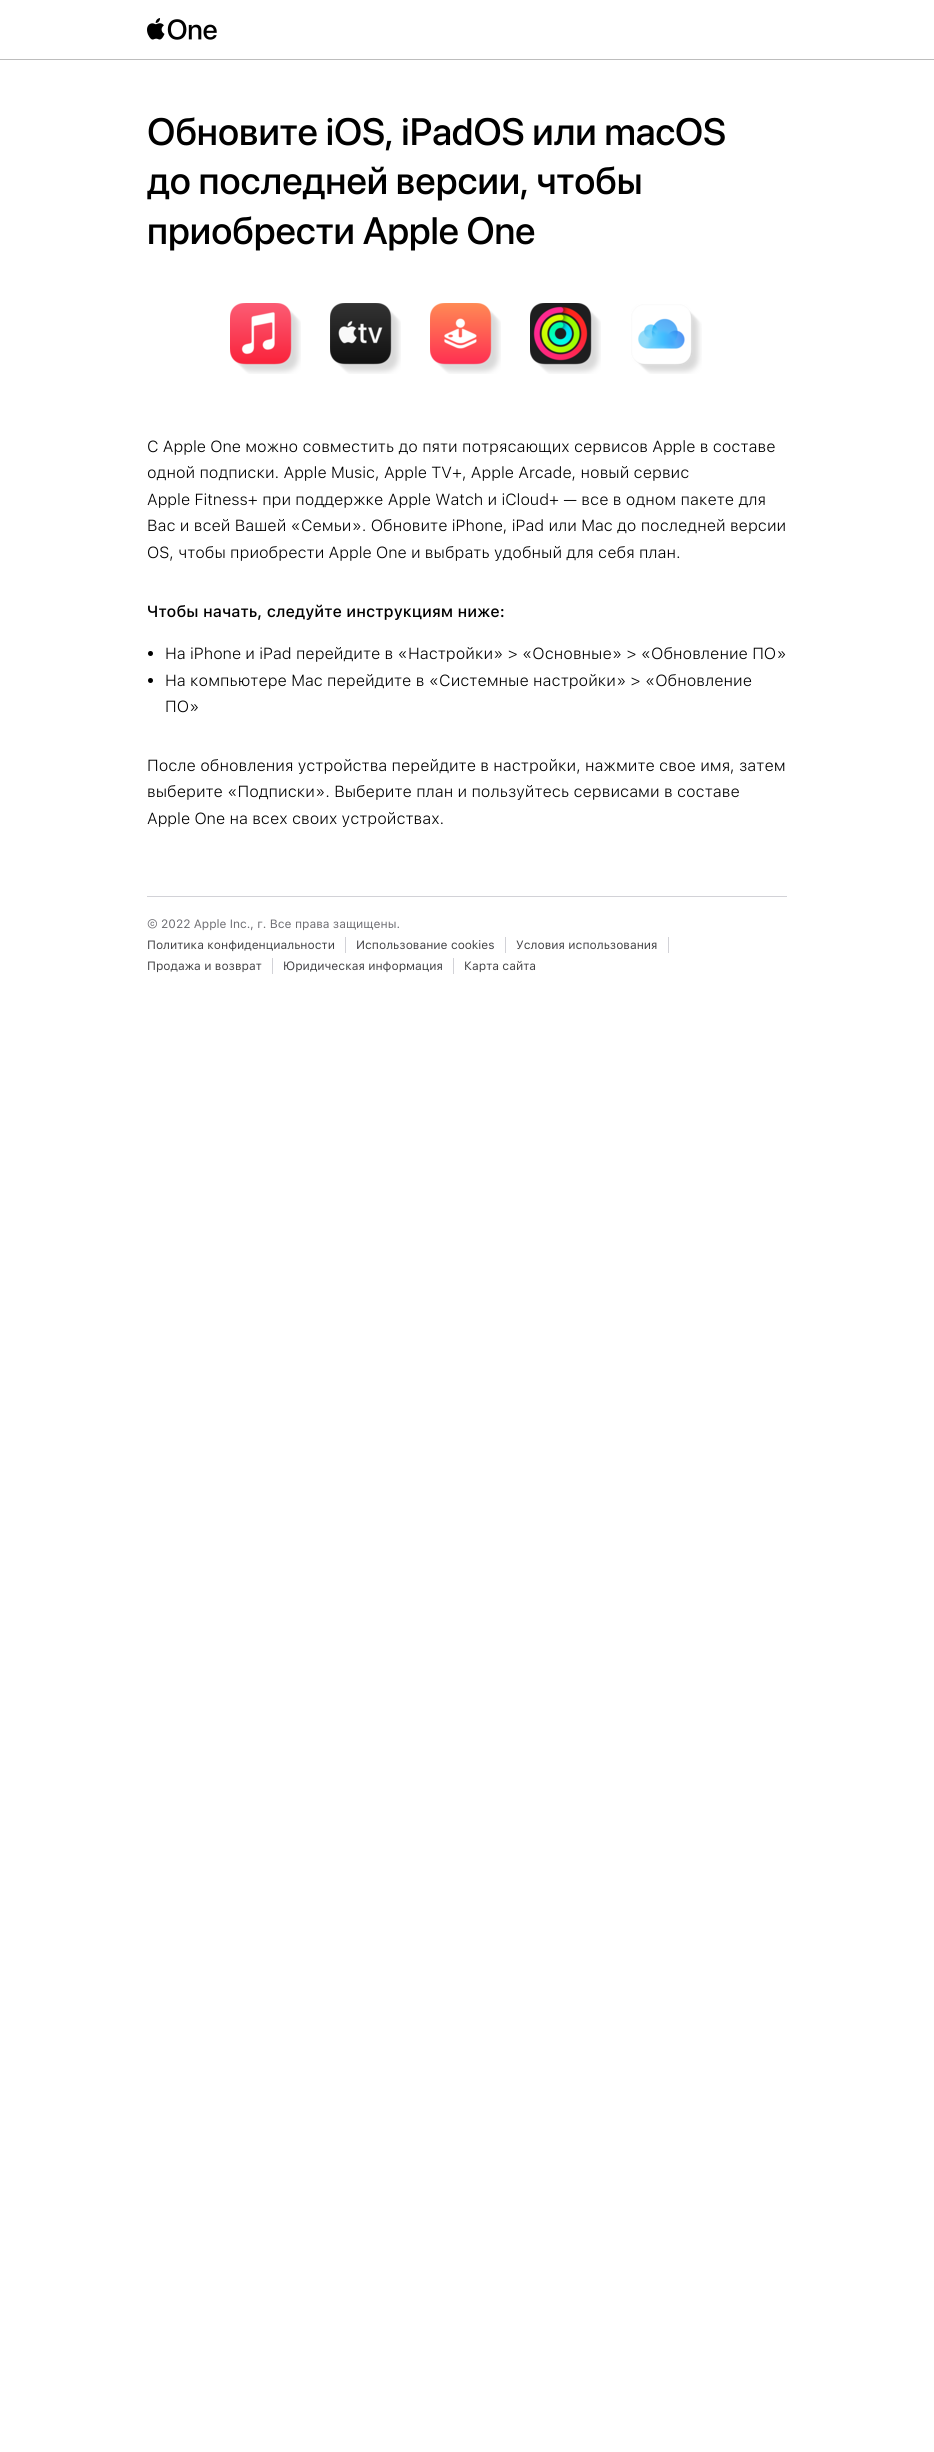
import math
import cairo

surface = cairo.ImageSurface(cairo.FORMAT_RGB24, 934, 2452)
ctx = cairo.Context(surface)
options = cairo.FontOptions()
options.set_hint_metrics(cairo.HINT_METRICS_OFF)
options.set_hint_style(cairo.HINT_STYLE_NONE)
ctx.set_font_options(options)
ctx.set_miter_limit(4)


def set_color(code):
    ctx.set_source_rgb(*(v / 255 for v in bytes.fromhex(code[-6:])))


def draw_text(x, y, s, family, size, color, bold=False, italic=False):
    ctx.select_font_face(family, cairo.FONT_SLANT_ITALIC if italic else cairo.FONT_SLANT_NORMAL, cairo.FONT_WEIGHT_BOLD if bold else cairo.FONT_WEIGHT_NORMAL)
    ctx.set_font_size(size)
    set_color(color)
    ctx.move_to(x, y)
    ctx.show_text(s)


def fill_rect(x, y, w, h, color):
    set_color(color)
    ctx.rectangle(x, y, w, h)
    ctx.fill()


def draw_image(path, x, y, w, h):
    ctx.save()
    ctx.set_source_surface(cairo.ImageSurface.create_from_png(path), x, y)
    ctx.rectangle(x, y, w, h)
    ctx.fill()
    ctx.restore()


set_color("#ffffff")
ctx.paint()
fill_rect(0, 59, 934, 1, "#bdbdbd")
draw_image("assets/img1.png", 147, 18, 70, 22)
draw_text(147, 145, "Обновите iOS, iPadOS или macOS", "SF Pro Display Medium", 38, "#000000")
draw_text(147, 194, "до последней версии, чтобы", "SF Pro Display Medium", 38, "#000000")
draw_text(147, 244, "приобрести Apple One", "SF Pro Display Medium", 38, "#000000")
draw_image("assets/img2.png", 230, 303, 71, 71)
draw_image("assets/img3.png", 330, 303, 71, 71)
draw_image("assets/img4.png", 430, 303, 71, 71)
draw_image("assets/img5.png", 530, 303, 71, 71)
draw_image("assets/img6.png", 631, 304, 71, 70)
draw_text(147, 452, "С Apple One можно совместить до пяти потрясающих сервисов Apple в составе", "SF Pro Text Light", 16, "#000000")
draw_text(147, 478, "одной подписки. Apple Music, Apple TV+, Apple Arcade, новый сервис", "SF Pro Text Light", 16, "#000000")
draw_text(147, 505, "Apple Fitness+ при поддержке Apple Watch и iCloud+ — все в одном пакете для", "SF Pro Text Light", 16, "#000000")
draw_text(147, 531, "Вас и всей Вашей «Семьи». Обновите iPhone, iPad или Mac до последней версии", "SF Pro Text Light", 16, "#000000")
draw_text(147, 558, "OS, чтобы приобрести Apple One и выбрать удобный для себя план.", "SF Pro Text Light", 16, "#000000")
draw_text(147, 617, "Чтобы начать, следуйте инструкциям ниже:", "SF Pro Text Medium", 16, "#000000")
ctx.new_path()
ctx.arc(150.5, 653.5, 2.5, 0, 2 * math.pi)
ctx.fill()
draw_text(165, 659, "На iPhone и iPad перейдите в «Настройки» > «Основные» > «Обновление ПО»", "SF Pro Text Light", 16, "#000000")
ctx.new_path()
ctx.arc(150.5, 680.5, 2.5, 0, 2 * math.pi)
ctx.fill()
draw_text(165, 686, "На компьютере Mac перейдите в «Системные настройки» > «Обновление", "SF Pro Text Light", 16, "#000000")
draw_text(165, 712, "ПО»", "SF Pro Text Light", 16, "#000000")
draw_text(147, 771, "После обновления устройства перейдите в настройки, нажмите свое имя, затем", "SF Pro Text Light", 16, "#000000")
draw_text(147, 797, "выберите «Подписки». Выберите план и пользуйтесь сервисами в составе", "SF Pro Text Light", 16, "#000000")
draw_text(147, 824, "Apple One на всех своих устройствах.", "SF Pro Text Light", 16, "#000000")
fill_rect(147, 896, 640, 1, "#d2d2d7")
draw_text(147, 928, "© 2022 Apple Inc., г. Все права защищены.", "SF Pro Text", 12, "#6e6e73")
fill_rect(345, 937, 1, 16, "#d2d2d7")
draw_text(147, 949, "Политика конфиденциальности", "SF Pro Text", 12, "#424245")
fill_rect(505, 937, 1, 16, "#d2d2d7")
draw_text(356, 949, "Использование cookies", "SF Pro Text", 12, "#424245")
fill_rect(668, 937, 1, 16, "#d2d2d7")
draw_text(516, 949, "Условия использования", "SF Pro Text", 12, "#424245")
fill_rect(272, 958, 1, 16, "#d2d2d7")
draw_text(147, 970, "Продажа и возврат", "SF Pro Text", 12, "#424245")
fill_rect(453, 958, 1, 16, "#d2d2d7")
draw_text(283, 970, "Юридическая информация", "SF Pro Text", 12, "#424245")
draw_text(464, 970, "Карта сайта", "SF Pro Text", 12, "#424245")
surface.write_to_png("output.png")
